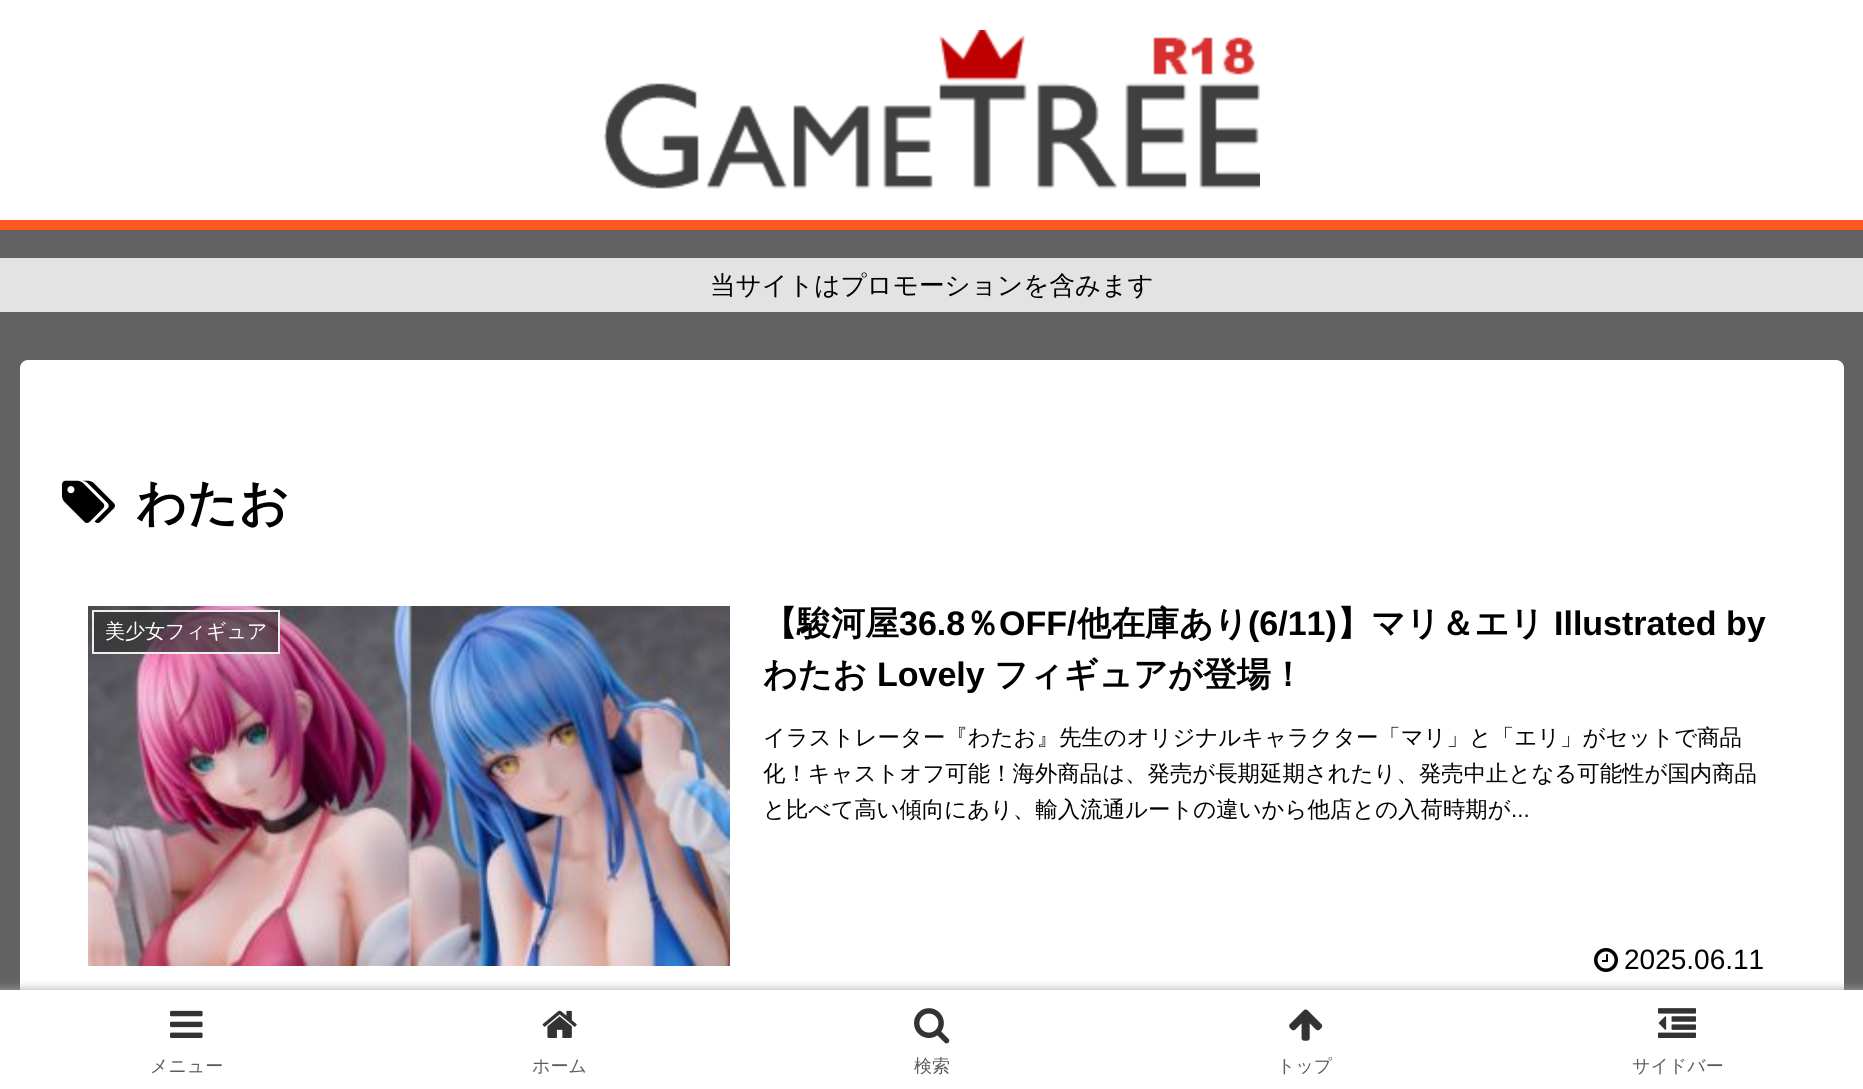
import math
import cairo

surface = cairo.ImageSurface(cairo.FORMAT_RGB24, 1863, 1089)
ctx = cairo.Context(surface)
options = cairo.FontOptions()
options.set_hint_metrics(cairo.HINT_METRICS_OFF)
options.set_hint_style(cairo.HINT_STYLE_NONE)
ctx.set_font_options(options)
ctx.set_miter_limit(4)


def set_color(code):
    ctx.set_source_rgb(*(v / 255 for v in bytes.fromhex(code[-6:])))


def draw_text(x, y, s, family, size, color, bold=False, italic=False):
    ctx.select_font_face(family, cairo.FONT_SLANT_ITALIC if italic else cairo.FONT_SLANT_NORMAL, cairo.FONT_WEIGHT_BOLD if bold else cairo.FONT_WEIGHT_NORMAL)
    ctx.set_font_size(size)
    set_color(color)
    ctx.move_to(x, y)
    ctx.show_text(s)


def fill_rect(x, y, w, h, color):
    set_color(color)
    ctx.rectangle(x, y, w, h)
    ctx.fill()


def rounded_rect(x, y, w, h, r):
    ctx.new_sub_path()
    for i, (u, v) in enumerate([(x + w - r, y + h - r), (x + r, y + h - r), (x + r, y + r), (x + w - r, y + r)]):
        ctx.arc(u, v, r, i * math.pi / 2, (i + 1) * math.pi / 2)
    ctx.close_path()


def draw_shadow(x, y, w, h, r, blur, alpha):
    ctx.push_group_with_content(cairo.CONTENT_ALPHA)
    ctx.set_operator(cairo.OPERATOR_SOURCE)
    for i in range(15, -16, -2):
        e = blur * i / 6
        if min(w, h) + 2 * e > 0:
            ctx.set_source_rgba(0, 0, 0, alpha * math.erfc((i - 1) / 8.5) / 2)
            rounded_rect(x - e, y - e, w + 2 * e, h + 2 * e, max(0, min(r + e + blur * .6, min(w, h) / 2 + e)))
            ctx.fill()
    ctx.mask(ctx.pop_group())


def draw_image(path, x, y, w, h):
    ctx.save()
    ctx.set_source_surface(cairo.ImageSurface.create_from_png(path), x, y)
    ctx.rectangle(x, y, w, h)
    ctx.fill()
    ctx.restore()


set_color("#626262")
ctx.paint()
fill_rect(0, 0, 1863, 220, "#ffffff")
draw_image("assets/img1.png", 604, 30, 656, 159)
fill_rect(0, 220, 1863, 10, "#ff5722")
fill_rect(0, 258, 1863, 54, "#e3e3e3")
draw_text(710, 294, "当サイトはプロモーションを含みます", "WenQuanYi Zen Hei Medium", 25.6, "#000000")
set_color("#ffffff")
rounded_rect(20, 360, 1824, 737, 8)
ctx.fill()
draw_image("assets/img2.png", 62, 480, 53, 43)
draw_text(136, 520, "わたお", "WenQuanYi Zen Hei", 50, "#000000", bold=True)
draw_image("assets/img3.png", 88, 606, 642, 360)
ctx.set_source_rgba(0.2, 0.2, 0.2, 0.7)
ctx.rectangle(93, 611, 186, 42)
ctx.fill_preserve()
set_color("#eeeeee")
ctx.stroke()
draw_text(105, 638, "美少女フィギュア", "WenQuanYi Zen Hei Medium", 20, "#ffffff")
draw_text(763, 635, "【駿河屋", "WenQuanYi Zen Hei", 34, "#000000", bold=True)
draw_text(899, 635, "36.8", "Liberation Sans", 34, "#000000", bold=True)
draw_text(965, 635, "％", "WenQuanYi Zen Hei", 34, "#000000", bold=True)
draw_text(999, 635, "OFF/", "Liberation Sans", 34, "#000000", bold=True)
draw_text(1077, 635, "他在庫あり", "WenQuanYi Zen Hei", 34, "#000000", bold=True)
draw_text(1248, 635, "(6/11)", "Liberation Sans", 34, "#000000", bold=True)
draw_text(1337, 635, "】マリ＆エリ", "WenQuanYi Zen Hei", 34, "#000000", bold=True)
draw_text(1554, 635, "Illustrated by", "Liberation Sans", 34, "#000000", bold=True)
draw_text(763, 686, "わたお", "WenQuanYi Zen Hei", 34, "#000000", bold=True)
draw_text(877, 686, "Lovely", "Liberation Sans", 34, "#000000", bold=True)
draw_text(994, 686, "フィギュアが登場！", "WenQuanYi Zen Hei", 34, "#000000", bold=True)
draw_text(763, 745, "イラストレーター『わたお』先生のオリジナルキャラクター「マリ」と「エリ」がセットで商品", "WenQuanYi Zen Hei Medium", 22.4, "#000000")
draw_text(763, 781, "化！キャストオフ可能！海外商品は、発売が長期延期されたり、発売中止となる可能性が国内商品", "WenQuanYi Zen Hei Medium", 22.4, "#000000")
draw_text(763, 817, "と比べて高い傾向にあり、輸入流通ルートの違いから他店との入荷時期が", "WenQuanYi Zen Hei Medium", 22.4, "#000000")
draw_text(1511, 817, "...", "Liberation Sans", 22.4, "#000000")
draw_image("assets/img4.png", 1594, 948, 24, 24)
draw_text(1624, 969, "2025.06.11", "Liberation Sans", 28, "#000000")
set_color("#a9a9a9")
draw_shadow(0, 990, 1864, 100, 0, 5, 1)
fill_rect(0, 990, 1863, 99, "#ffffff")
draw_image("assets/img5.png", 170, 1010, 33, 28)
draw_text(150, 1072, "メニュー", "WenQuanYi Zen Hei Medium", 18, "#5c5c5c")
draw_image("assets/img6.png", 542, 1010, 35, 28)
draw_text(532, 1072, "ホーム", "WenQuanYi Zen Hei Medium", 18, "#5c5c5c")
draw_image("assets/img7.png", 914, 1008, 36, 36)
draw_text(914, 1072, "検索", "WenQuanYi Zen Hei Medium", 18, "#5c5c5c")
draw_image("assets/img8.png", 1289, 1009, 34, 32)
draw_text(1277, 1072, "トップ", "WenQuanYi Zen Hei Medium", 18, "#5c5c5c")
draw_image("assets/img9.png", 1658, 1008, 38, 30)
draw_text(1632, 1072, "サイドバー", "WenQuanYi Zen Hei Medium", 18, "#5c5c5c")
surface.write_to_png("output.png")
